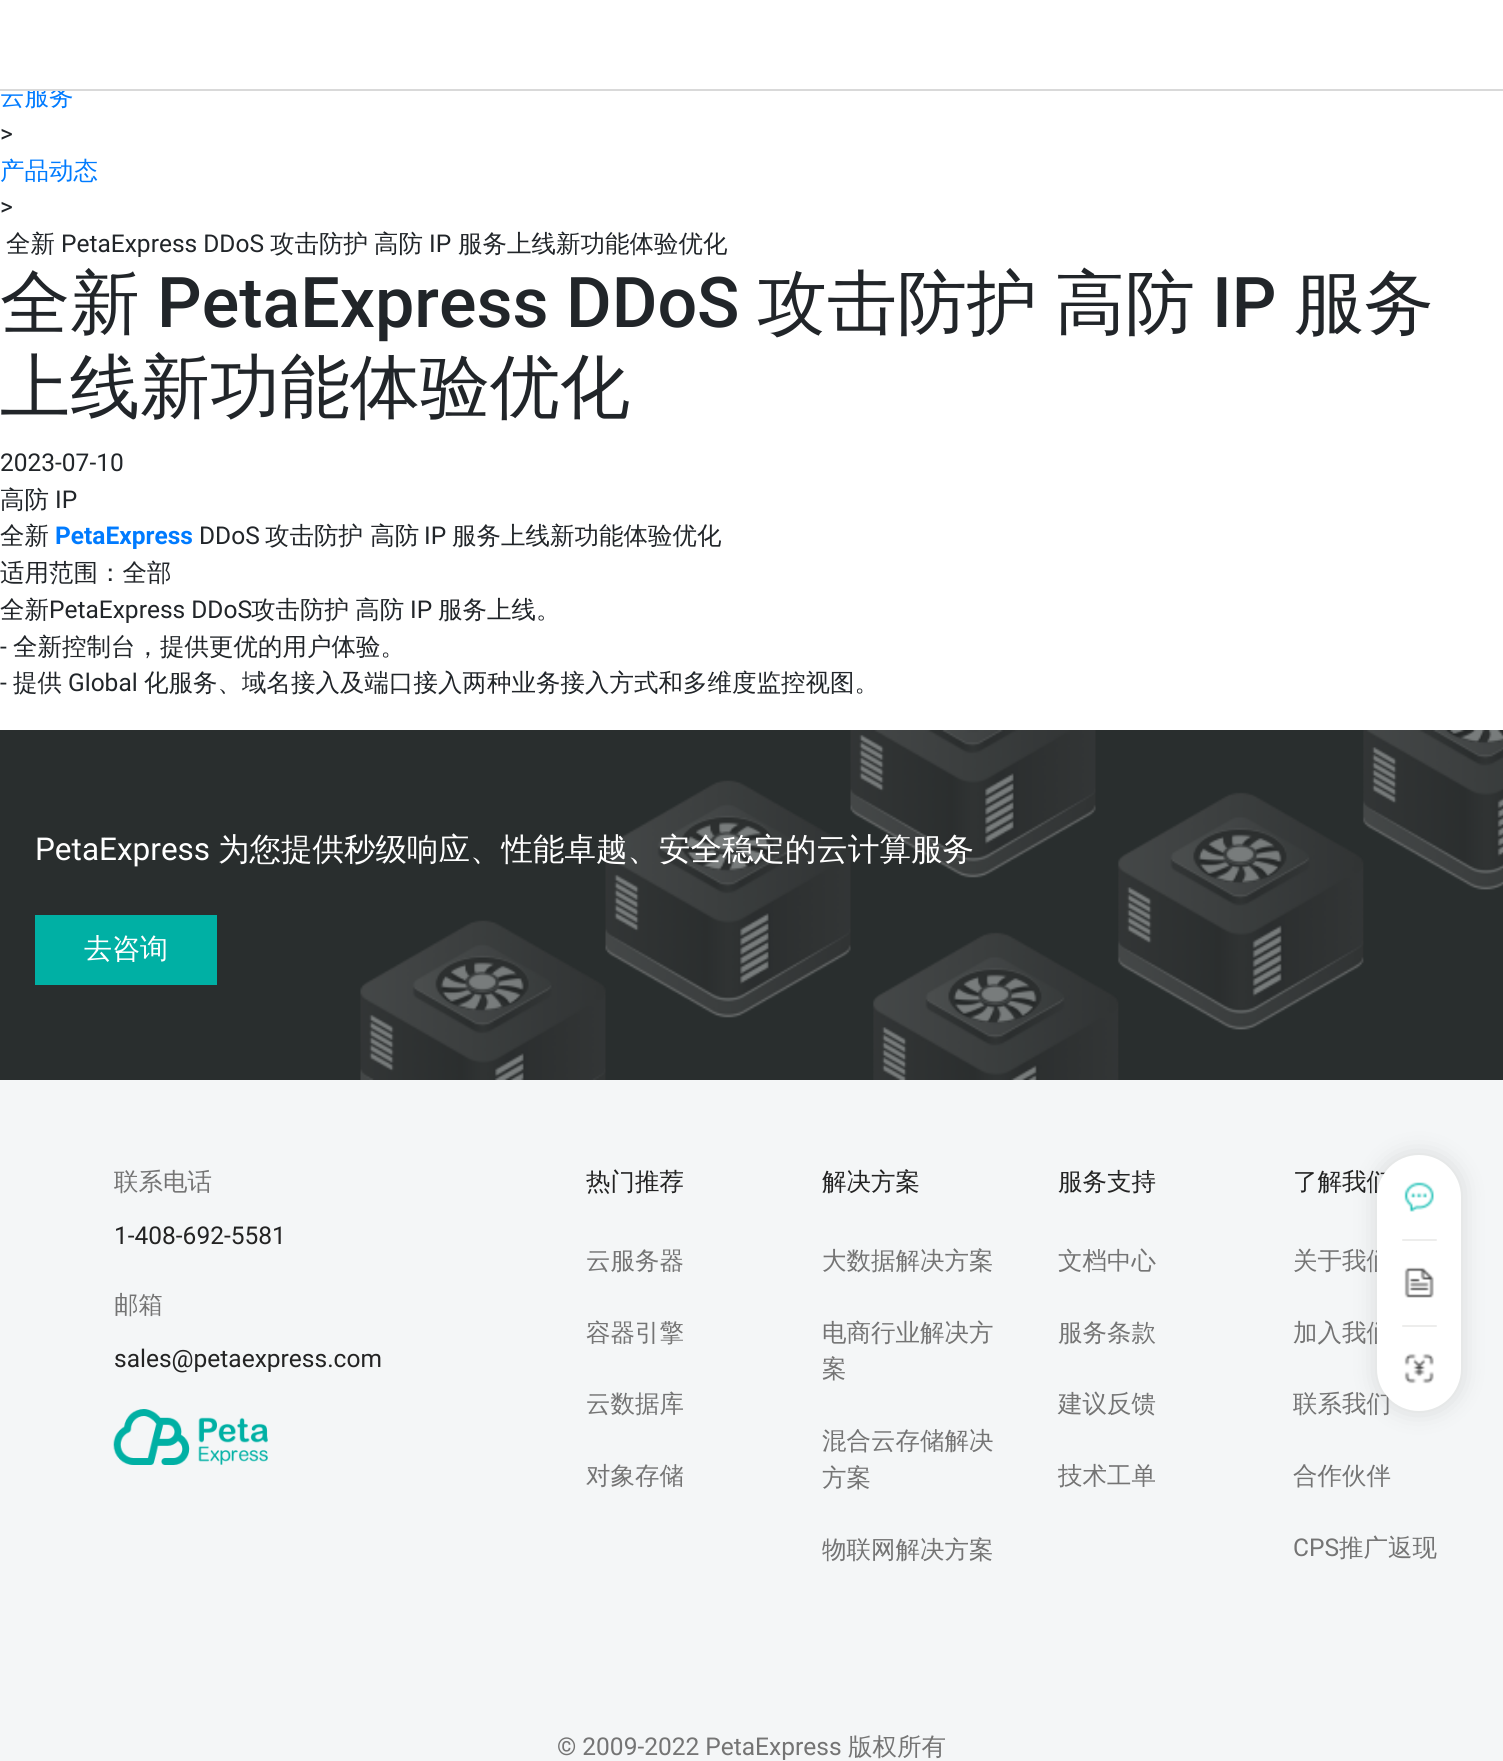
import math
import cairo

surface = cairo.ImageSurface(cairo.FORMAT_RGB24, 1503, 1761)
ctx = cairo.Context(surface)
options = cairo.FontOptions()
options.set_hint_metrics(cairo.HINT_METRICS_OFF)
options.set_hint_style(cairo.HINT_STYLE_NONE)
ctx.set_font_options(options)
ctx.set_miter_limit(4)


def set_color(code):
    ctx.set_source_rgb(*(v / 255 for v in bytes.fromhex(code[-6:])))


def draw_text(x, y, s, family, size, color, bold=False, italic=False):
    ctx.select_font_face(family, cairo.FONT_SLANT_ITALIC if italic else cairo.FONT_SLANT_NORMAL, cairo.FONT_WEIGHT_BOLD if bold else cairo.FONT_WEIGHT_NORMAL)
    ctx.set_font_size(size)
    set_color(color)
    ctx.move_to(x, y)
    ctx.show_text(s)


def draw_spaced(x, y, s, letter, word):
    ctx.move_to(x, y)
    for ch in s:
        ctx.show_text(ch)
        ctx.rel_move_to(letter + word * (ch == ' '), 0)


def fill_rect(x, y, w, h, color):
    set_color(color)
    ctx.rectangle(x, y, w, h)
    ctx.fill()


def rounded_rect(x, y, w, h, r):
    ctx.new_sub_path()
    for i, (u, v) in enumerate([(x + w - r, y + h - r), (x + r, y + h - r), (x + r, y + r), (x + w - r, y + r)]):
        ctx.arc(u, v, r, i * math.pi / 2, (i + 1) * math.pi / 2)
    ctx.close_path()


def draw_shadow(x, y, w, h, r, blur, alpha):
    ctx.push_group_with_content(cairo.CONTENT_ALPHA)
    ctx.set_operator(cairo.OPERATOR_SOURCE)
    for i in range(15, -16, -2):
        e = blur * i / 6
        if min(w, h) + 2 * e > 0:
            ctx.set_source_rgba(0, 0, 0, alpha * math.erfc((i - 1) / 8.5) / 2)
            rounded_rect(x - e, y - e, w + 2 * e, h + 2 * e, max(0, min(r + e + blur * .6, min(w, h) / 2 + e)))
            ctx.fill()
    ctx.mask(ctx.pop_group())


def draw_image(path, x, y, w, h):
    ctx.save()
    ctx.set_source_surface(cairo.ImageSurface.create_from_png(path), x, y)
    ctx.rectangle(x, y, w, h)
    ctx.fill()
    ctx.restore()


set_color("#ffffff")
ctx.paint()
draw_text(0, 105, "云服务", "WenQuanYi Zen Hei Medium", 24.5, "#007bff")
draw_text(0, 142, ">", "Roboto", 24.5, "#212529")
draw_text(0, 179, "产品动态", "WenQuanYi Zen Hei Medium", 24.5, "#007bff")
draw_text(0, 215, ">", "Roboto", 24.5, "#212529")
draw_text(6, 252, "全新", "WenQuanYi Zen Hei Medium", 24.5, "#212529")
draw_text(61, 252, "PetaExpress DDoS", "Roboto", 24.5, "#212529")
draw_text(270, 252, "攻击防护", "WenQuanYi Zen Hei Medium", 24.5, "#212529")
draw_text(374, 252, "高防", "WenQuanYi Zen Hei Medium", 24.5, "#212529")
draw_text(429, 252, "IP", "Roboto", 24.5, "#212529")
draw_text(458, 252, "服务上线新功能体验优化", "WenQuanYi Zen Hei Medium", 24.5, "#212529")
draw_text(0, 327, "全新", "WenQuanYi Zen Hei Medium", 70, "#212529")
draw_text(157, 327, "PetaExpress DDoS", "Roboto Medium", 70, "#212529")
draw_text(757, 327, "攻击防护", "WenQuanYi Zen Hei Medium", 70, "#212529")
draw_text(1055, 327, "高防", "WenQuanYi Zen Hei Medium", 70, "#212529")
draw_text(1212, 327, "IP", "Roboto Medium", 70, "#212529")
draw_text(1294, 327, "服务", "WenQuanYi Zen Hei Medium", 70, "#212529")
draw_text(0, 411, "上线新功能体验优化", "WenQuanYi Zen Hei Medium", 70, "#212529")
draw_text(0, 471, "2023-07-10", "Roboto", 24.5, "#212529")
draw_text(0, 508, "高防", "WenQuanYi Zen Hei Medium", 24.5, "#212529")
draw_text(55, 508, "IP", "Roboto", 24.5, "#212529")
draw_text(0, 544, "全新", "WenQuanYi Zen Hei Medium", 24.5, "#212529")
draw_text(55, 544, "PetaExpress", "Roboto", 24.5, "#007bff", bold=True)
draw_text(199, 544, "DDoS", "Roboto", 24.5, "#212529")
draw_text(265, 544, "攻击防护 高防", "WenQuanYi Zen Hei Medium", 24.5, "#212529")
draw_text(424, 544, "IP", "Roboto", 24.5, "#212529")
draw_text(452, 544, "服务上线新功能体验优化", "WenQuanYi Zen Hei Medium", 24.5, "#212529")
draw_text(0, 581, "适用范围：全部", "WenQuanYi Zen Hei Medium", 24.5, "#212529")
draw_text(0, 618, "全新", "WenQuanYi Zen Hei Medium", 24.5, "#212529")
draw_text(49, 618, "PetaExpress DDoS", "Roboto", 24.5, "#212529")
ctx.select_font_face("WenQuanYi Zen Hei Medium")
draw_spaced(251, 618, "攻击防护 高防", 0, -1)
draw_text(410, 618, "IP", "Roboto", 24.5, "#212529")
draw_text(438, 618, "服务上线。", "WenQuanYi Zen Hei Medium", 24.5, "#212529")
draw_text(0, 655, "-", "Roboto", 24.5, "#212529")
draw_text(13, 655, "全新控制台，提供更优的用户体验。", "WenQuanYi Zen Hei Medium", 24.5, "#212529")
draw_text(0, 691, "-", "Roboto", 24.5, "#212529")
draw_text(13, 691, "提供", "WenQuanYi Zen Hei Medium", 24.5, "#212529")
draw_text(68, 691, "Global", "Roboto", 24.5, "#212529")
draw_text(144, 691, "化服务、域名接入及端口接入两种业务接入方式和多维度监控视图。", "WenQuanYi Zen Hei Medium", 24.5, "#212529")
fill_rect(0, 730, 1503, 350, "#292e2e")
draw_image("assets/img1.png", 360, 730, 1143, 350)
draw_text(35, 860, "PetaExpress", "Roboto", 31.5, "#ffffff")
draw_text(218, 860, "为您提供秒级响应、性能卓越、安全稳定的云计算服务", "WenQuanYi Zen Hei Medium", 31.5, "#ffffff")
fill_rect(35, 915, 182, 70, "#00b0a4")
draw_text(84, 958, "去咨询", "WenQuanYi Zen Hei Medium", 28, "#ffffff")
fill_rect(3, 85, 65, 4, "#ffffff")
fill_rect(0, 89, 1503, 2, "#d9d9d9")
fill_rect(0, 1080, 1503, 681, "#f4f6f7")
set_color("#000000")
draw_shadow(1377, 1155, 84, 256, 42, 13, 0.12)
draw_text(1293, 1190, "了解我们", "WenQuanYi Zen Hei Medium", 24.5, "#232323")
draw_text(1293, 1269, "关于我们", "WenQuanYi Zen Hei Medium", 24.5, "#747474")
draw_text(1293, 1341, "加入我们", "WenQuanYi Zen Hei Medium", 24.5, "#747474")
draw_text(1293, 1412, "联系我们", "WenQuanYi Zen Hei Medium", 24.5, "#747474")
set_color("#ffffff")
rounded_rect(1377, 1155, 84, 256, 42)
ctx.fill()
draw_image("assets/img2.png", 1404, 1182, 30, 30)
set_color("#ededec")
rounded_rect(1402, 1239, 35, 2, 1)
ctx.fill()
draw_image("assets/img3.png", 1404, 1267, 30, 31)
rounded_rect(1402, 1325, 35, 2, 1)
ctx.fill()
draw_image("assets/img4.png", 1404, 1353, 30, 31)
draw_text(114, 1190, "联系电话", "WenQuanYi Zen Hei Medium", 24.5, "#747474")
draw_text(114, 1244, "1-408-692-5581", "Roboto", 24.5, "#232323")
draw_text(114, 1313, "邮箱", "WenQuanYi Zen Hei Medium", 24.5, "#747474")
draw_text(114, 1367, "sales@petaexpress.com", "Roboto", 24.5, "#232323")
draw_image("assets/img5.png", 113, 1409, 155, 56)
draw_text(586, 1190, "热门推荐", "WenQuanYi Zen Hei Medium", 24.5, "#232323")
draw_text(586, 1269, "云服务器", "WenQuanYi Zen Hei Medium", 24.5, "#747474")
draw_text(586, 1341, "容器引擎", "WenQuanYi Zen Hei Medium", 24.5, "#747474")
draw_text(586, 1412, "云数据库", "WenQuanYi Zen Hei Medium", 24.5, "#747474")
draw_text(586, 1484, "对象存储", "WenQuanYi Zen Hei Medium", 24.5, "#747474")
draw_text(822, 1190, "解决方案", "WenQuanYi Zen Hei Medium", 24.5, "#232323")
draw_text(822, 1269, "大数据解决方案", "WenQuanYi Zen Hei Medium", 24.5, "#747474")
draw_text(822, 1341, "电商行业解决方", "WenQuanYi Zen Hei Medium", 24.5, "#747474")
draw_text(822, 1377, "案", "WenQuanYi Zen Hei Medium", 24.5, "#747474")
draw_text(822, 1449, "混合云存储解决", "WenQuanYi Zen Hei Medium", 24.5, "#747474")
draw_text(822, 1486, "方案", "WenQuanYi Zen Hei Medium", 24.5, "#747474")
draw_text(822, 1558, "物联网解决方案", "WenQuanYi Zen Hei Medium", 24.5, "#747474")
draw_text(1058, 1190, "服务支持", "WenQuanYi Zen Hei Medium", 24.5, "#232323")
draw_text(1058, 1269, "文档中心", "WenQuanYi Zen Hei Medium", 24.5, "#747474")
draw_text(1058, 1341, "服务条款", "WenQuanYi Zen Hei Medium", 24.5, "#747474")
draw_text(1058, 1412, "建议反馈", "WenQuanYi Zen Hei Medium", 24.5, "#747474")
draw_text(1058, 1484, "技术工单", "WenQuanYi Zen Hei Medium", 24.5, "#747474")
draw_text(1293, 1484, "合作伙伴", "WenQuanYi Zen Hei Medium", 24.5, "#747474")
draw_text(1293, 1556, "CPS", "Roboto", 24.5, "#747474")
draw_text(1339, 1556, "推广返现", "WenQuanYi Zen Hei Medium", 24.5, "#747474")
draw_text(557, 1755, "© 2009-2022 PetaExpress", "Roboto", 24.5, "#747474")
draw_text(848, 1755, "版权所有", "WenQuanYi Zen Hei Medium", 24.5, "#747474")
surface.write_to_png("output.png")
